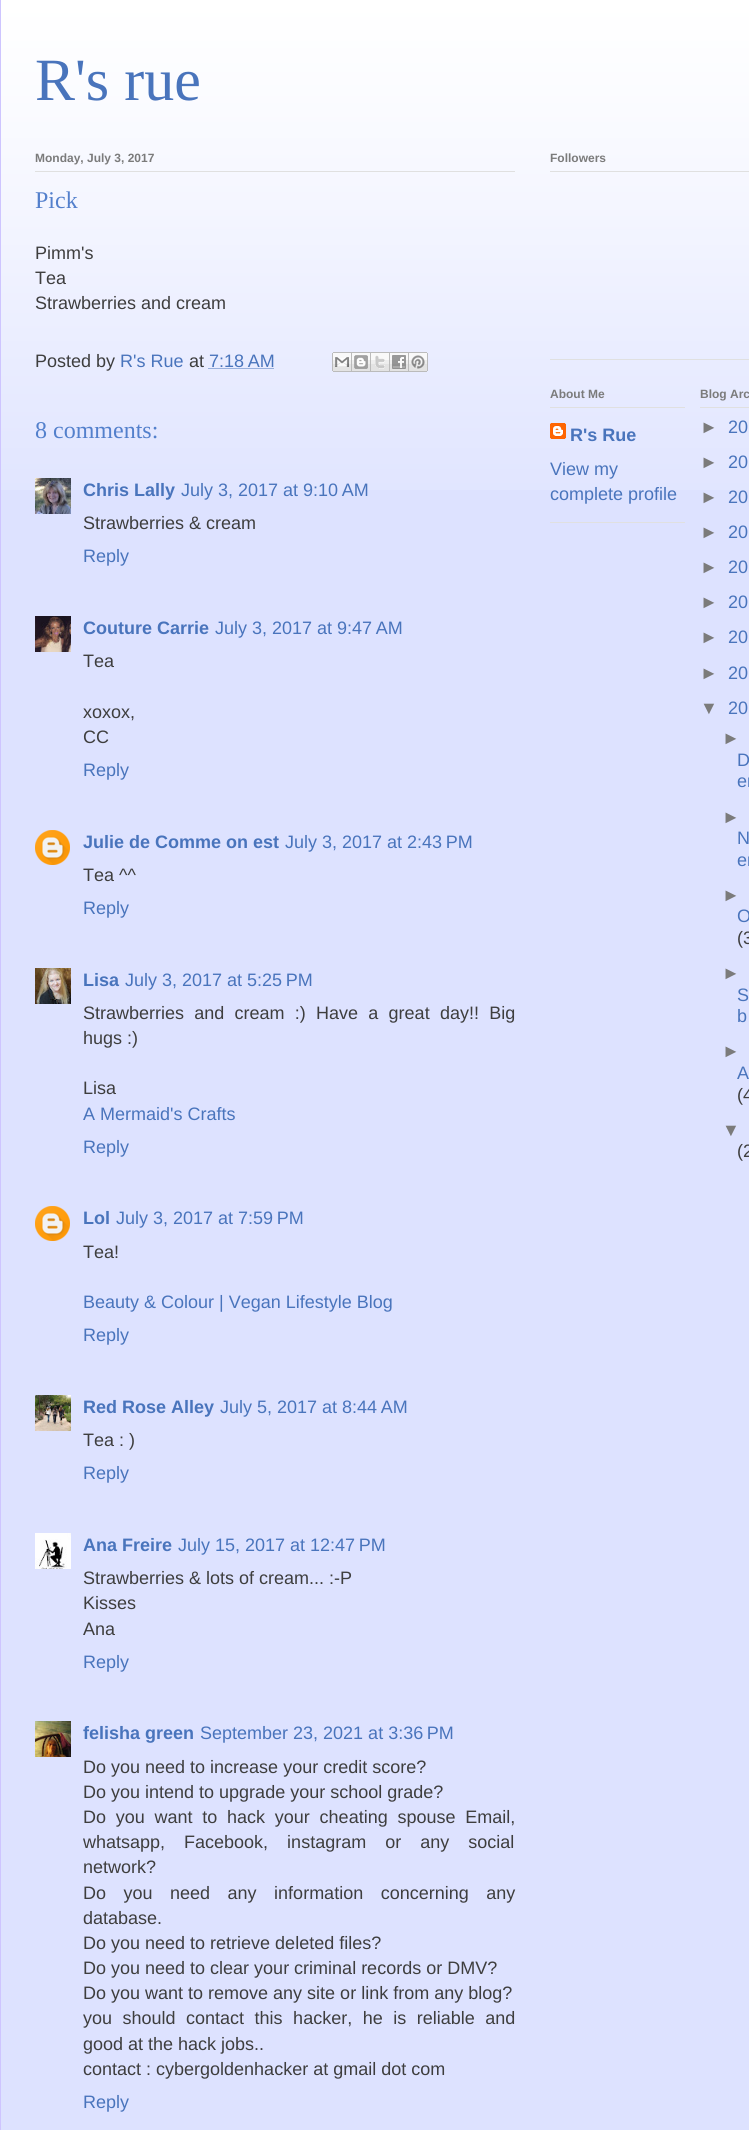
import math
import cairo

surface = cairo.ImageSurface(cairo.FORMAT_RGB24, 749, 2130)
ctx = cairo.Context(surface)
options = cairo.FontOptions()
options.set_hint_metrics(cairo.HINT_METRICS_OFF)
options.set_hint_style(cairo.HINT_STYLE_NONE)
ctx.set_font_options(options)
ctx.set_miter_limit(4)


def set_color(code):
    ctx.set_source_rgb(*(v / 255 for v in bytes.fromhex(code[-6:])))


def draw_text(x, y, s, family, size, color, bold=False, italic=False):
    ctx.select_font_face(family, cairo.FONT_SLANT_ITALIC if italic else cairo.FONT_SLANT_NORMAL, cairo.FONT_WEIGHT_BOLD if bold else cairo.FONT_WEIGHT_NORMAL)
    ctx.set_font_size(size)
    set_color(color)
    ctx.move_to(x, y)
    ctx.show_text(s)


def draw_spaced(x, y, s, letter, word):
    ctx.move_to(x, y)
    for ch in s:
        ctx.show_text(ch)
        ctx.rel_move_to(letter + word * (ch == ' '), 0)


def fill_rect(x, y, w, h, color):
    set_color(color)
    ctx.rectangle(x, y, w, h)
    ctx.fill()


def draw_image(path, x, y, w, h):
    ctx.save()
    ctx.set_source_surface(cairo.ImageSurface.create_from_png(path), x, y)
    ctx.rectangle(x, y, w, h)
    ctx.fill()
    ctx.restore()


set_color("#dde2ff")
ctx.paint()
draw_image("assets/img1.png", 1, 0, 748, 490)
fill_rect(0, 0, 1, 2130, "#cec5ff")
draw_text(35, 100, "R's rue", "Liberation Serif", 60, "#4974bc")
fill_rect(35, 171, 480, 1, "#e0e0e0")
draw_text(35, 162, "Monday, July 3, 2017", "Liberation Sans", 12, "#7b7b7b", bold=True)
draw_text(35, 208, "Pick", "Liberation Serif", 24, "#5380cc")
draw_text(35, 259, "Pimm's", "Liberation Sans", 18, "#3e3e3e")
draw_text(35, 284, "Tea", "Liberation Sans", 18, "#3e3e3e")
draw_text(35, 309, "Strawberries and cream", "Liberation Sans", 18, "#3e3e3e")
draw_text(35, 367, "Posted by", "Liberation Sans", 18, "#3e3e3e")
draw_text(120, 367, "R's Rue", "Liberation Sans", 18, "#4974bc")
draw_text(189, 367, "at", "Liberation Sans", 18, "#3e3e3e")
draw_text(209, 367, "7:18 AM", "Liberation Sans", 18, "#4974bc")
ctx.new_path()
ctx.move_to(208.5, 368.5)
ctx.line_to(274, 368.5)
ctx.set_line_width(1)
ctx.set_dash([1, 1])
ctx.stroke()
draw_image("assets/img2.png", 332, 352, 20, 20)
draw_image("assets/img3.png", 352, 352, 19, 20)
draw_image("assets/img4.png", 371, 352, 19, 20)
draw_image("assets/img5.png", 390, 352, 19, 20)
draw_image("assets/img6.png", 409, 352, 19, 20)
draw_text(35, 438, "8 comments:", "Liberation Serif", 24, "#5380cc")
draw_image("assets/img7.png", 35, 478, 36, 36)
draw_text(83, 496, "Chris Lally", "Liberation Sans", 18, "#4974bc", bold=True)
draw_text(181, 496, "July 3, 2017 at 9:10 AM", "Liberation Sans", 18, "#4974bc")
draw_text(83, 529, "Strawberries & cream", "Liberation Sans", 18, "#3e3e3e")
draw_text(83, 562, "Reply", "Liberation Sans", 18, "#4974bc")
draw_image("assets/img8.png", 35, 616, 36, 36)
draw_text(83, 634, "Couture Carrie", "Liberation Sans", 18, "#4974bc", bold=True)
draw_text(215, 634, "July 3, 2017 at 9:47 AM", "Liberation Sans", 18, "#4974bc")
draw_text(83, 667, "Tea", "Liberation Sans", 18, "#3e3e3e")
draw_text(83, 718, "xoxox,", "Liberation Sans", 18, "#3e3e3e")
draw_text(83, 743, "CC", "Liberation Sans", 18, "#3e3e3e")
draw_text(83, 776, "Reply", "Liberation Sans", 18, "#4974bc")
draw_image("assets/img9.png", 35, 830, 35, 35)
draw_text(83, 848, "Julie de Comme on est", "Liberation Sans", 18, "#4974bc", bold=True)
draw_text(285, 848, "July 3, 2017 at 2:43 PM", "Liberation Sans", 18, "#4974bc")
draw_text(83, 881, "Tea ^^", "Liberation Sans", 18, "#3e3e3e")
draw_text(83, 914, "Reply", "Liberation Sans", 18, "#4974bc")
draw_image("assets/img10.png", 35, 968, 36, 36)
draw_text(83, 986, "Lisa", "Liberation Sans", 18, "#4974bc", bold=True)
draw_text(125, 986, "July 3, 2017 at 5:25 PM", "Liberation Sans", 18, "#4974bc")
set_color("#3e3e3e")
draw_spaced(83, 1019, "Strawberries and cream :) Have a great day!! Big", 0, 5.25)
draw_text(83, 1044, "hugs :)", "Liberation Sans", 18, "#3e3e3e")
draw_text(83, 1094, "Lisa", "Liberation Sans", 18, "#3e3e3e")
draw_text(83, 1120, "A Mermaid's Crafts", "Liberation Sans", 18, "#4974bc")
draw_text(83, 1153, "Reply", "Liberation Sans", 18, "#4974bc")
draw_image("assets/img9.png", 35, 1206, 35, 35)
draw_text(83, 1224, "Lol", "Liberation Sans", 18, "#4974bc", bold=True)
draw_text(116, 1224, "July 3, 2017 at 7:59 PM", "Liberation Sans", 18, "#4974bc")
draw_text(83, 1258, "Tea!", "Liberation Sans", 18, "#3e3e3e")
draw_text(83, 1308, "Beauty & Colour | Vegan Lifestyle Blog", "Liberation Sans", 18, "#4974bc")
draw_text(83, 1341, "Reply", "Liberation Sans", 18, "#4974bc")
draw_image("assets/img11.png", 35, 1395, 36, 36)
draw_text(83, 1413, "Red Rose Alley", "Liberation Sans", 18, "#4974bc", bold=True)
draw_text(220, 1413, "July 5, 2017 at 8:44 AM", "Liberation Sans", 18, "#4974bc")
draw_text(83, 1446, "Tea : )", "Liberation Sans", 18, "#3e3e3e")
draw_text(83, 1479, "Reply", "Liberation Sans", 18, "#4974bc")
draw_image("assets/img12.png", 35, 1533, 36, 36)
draw_text(83, 1551, "Ana Freire", "Liberation Sans", 18, "#4974bc", bold=True)
draw_text(178, 1551, "July 15, 2017 at 12:47 PM", "Liberation Sans", 18, "#4974bc")
draw_text(83, 1584, "Strawberries & lots of cream... :-P", "Liberation Sans", 18, "#3e3e3e")
draw_text(83, 1609, "Kisses", "Liberation Sans", 18, "#3e3e3e")
draw_text(83, 1635, "Ana", "Liberation Sans", 18, "#3e3e3e")
draw_text(83, 1668, "Reply", "Liberation Sans", 18, "#4974bc")
draw_image("assets/img13.png", 35, 1721, 36, 36)
draw_text(83, 1739, "felisha green", "Liberation Sans", 18, "#4974bc", bold=True)
draw_text(200, 1739, "September 23, 2021 at 3:36 PM", "Liberation Sans", 18, "#4974bc")
draw_text(83, 1773, "Do you need to increase your credit score?", "Liberation Sans", 18, "#3e3e3e")
draw_text(83, 1798, "Do you intend to upgrade your school grade?", "Liberation Sans", 18, "#3e3e3e")
draw_spaced(83, 1823, "Do you want to hack your cheating spouse Email,", 0, 4.75)
draw_spaced(83, 1848, "whatsapp, Facebook, instagram or any social", 0, 14)
draw_text(83, 1873, "network?", "Liberation Sans", 18, "#3e3e3e")
draw_spaced(83, 1899, "Do you need any information concerning any", 0, 12.5)
draw_text(83, 1924, "database.", "Liberation Sans", 18, "#3e3e3e")
draw_text(83, 1949, "Do you need to retrieve deleted files?", "Liberation Sans", 18, "#3e3e3e")
draw_text(83, 1974, "Do you need to clear your criminal records or DMV?", "Liberation Sans", 18, "#3e3e3e")
draw_text(83, 1999, "Do you want to remove any site or link from any blog?", "Liberation Sans", 18, "#3e3e3e")
draw_spaced(83, 2024, "you should contact this hacker, he is reliable and", 0, 5.5)
draw_text(83, 2050, "good at the hack jobs..", "Liberation Sans", 18, "#3e3e3e")
draw_text(83, 2075, "contact : cybergoldenhacker at gmail dot com", "Liberation Sans", 18, "#3e3e3e")
draw_text(83, 2108, "Reply", "Liberation Sans", 18, "#4974bc")
fill_rect(550, 359, 199, 1, "#e0e0e0")
fill_rect(550, 171, 199, 1, "#e0e0e0")
draw_text(550, 162, "Followers", "Liberation Sans", 12, "#7b7b7b", bold=True)
fill_rect(550, 522, 135, 1, "#e0e0e0")
fill_rect(550, 407, 135, 1, "#e0e0e0")
draw_text(550, 398, "About Me", "Liberation Sans", 12, "#7b7b7b", bold=True)
draw_image("assets/img14.png", 550, 423, 16, 16)
draw_text(570, 441, "R's Rue", "Liberation Sans", 18, "#4974bc", bold=True)
draw_text(550, 475, "View my", "Liberation Sans", 18, "#4974bc")
draw_text(550, 500, "complete profile", "Liberation Sans", 18, "#4974bc")
fill_rect(700, 407, 49, 1, "#e0e0e0")
draw_text(700, 398, "Blog Arc", "Liberation Sans", 12, "#7b7b7b", bold=True)
draw_text(700, 433, "►", "Liberation Sans", 18, "#7b7b7b")
draw_text(728, 433, "20", "Liberation Sans", 18, "#4974bc")
draw_text(700, 468, "►", "Liberation Sans", 18, "#7b7b7b")
draw_text(728, 468, "20", "Liberation Sans", 18, "#4974bc")
draw_text(700, 503, "►", "Liberation Sans", 18, "#7b7b7b")
draw_text(728, 503, "20", "Liberation Sans", 18, "#4974bc")
draw_text(700, 538, "►", "Liberation Sans", 18, "#7b7b7b")
draw_text(728, 538, "20", "Liberation Sans", 18, "#4974bc")
draw_text(700, 573, "►", "Liberation Sans", 18, "#7b7b7b")
draw_text(728, 573, "20", "Liberation Sans", 18, "#4974bc")
draw_text(700, 608, "►", "Liberation Sans", 18, "#7b7b7b")
draw_text(728, 608, "20", "Liberation Sans", 18, "#4974bc")
draw_text(700, 643, "►", "Liberation Sans", 18, "#7b7b7b")
draw_text(728, 643, "20", "Liberation Sans", 18, "#4974bc")
draw_text(700, 679, "►", "Liberation Sans", 18, "#7b7b7b")
draw_text(728, 679, "20", "Liberation Sans", 18, "#4974bc")
draw_text(700, 714, "▼", "Liberation Sans", 18, "#7b7b7b")
draw_text(728, 714, "20", "Liberation Sans", 18, "#4974bc")
draw_text(722, 744, "►", "Liberation Sans", 18, "#7b7b7b")
draw_text(737, 766, "D", "Liberation Sans", 18, "#4974bc")
draw_text(737, 787, "er", "Liberation Sans", 18, "#4974bc")
draw_text(722, 823, "►", "Liberation Sans", 18, "#7b7b7b")
draw_text(737, 844, "N", "Liberation Sans", 18, "#4974bc")
draw_text(737, 866, "er", "Liberation Sans", 18, "#4974bc")
draw_text(722, 901, "►", "Liberation Sans", 18, "#7b7b7b")
draw_text(737, 922, "O", "Liberation Sans", 18, "#4974bc")
draw_text(737, 944, "(3", "Liberation Sans", 18, "#3e3e3e")
draw_text(722, 979, "►", "Liberation Sans", 18, "#7b7b7b")
draw_text(737, 1001, "S", "Liberation Sans", 18, "#4974bc")
draw_text(737, 1022, "b", "Liberation Sans", 18, "#4974bc")
draw_text(722, 1057, "►", "Liberation Sans", 18, "#7b7b7b")
draw_text(737, 1079, "A", "Liberation Sans", 18, "#4974bc")
draw_text(737, 1101, "(4", "Liberation Sans", 18, "#3e3e3e")
draw_text(722, 1136, "▼", "Liberation Sans", 18, "#7b7b7b")
draw_text(737, 1157, "(2", "Liberation Sans", 18, "#3e3e3e")
surface.write_to_png("output.png")
